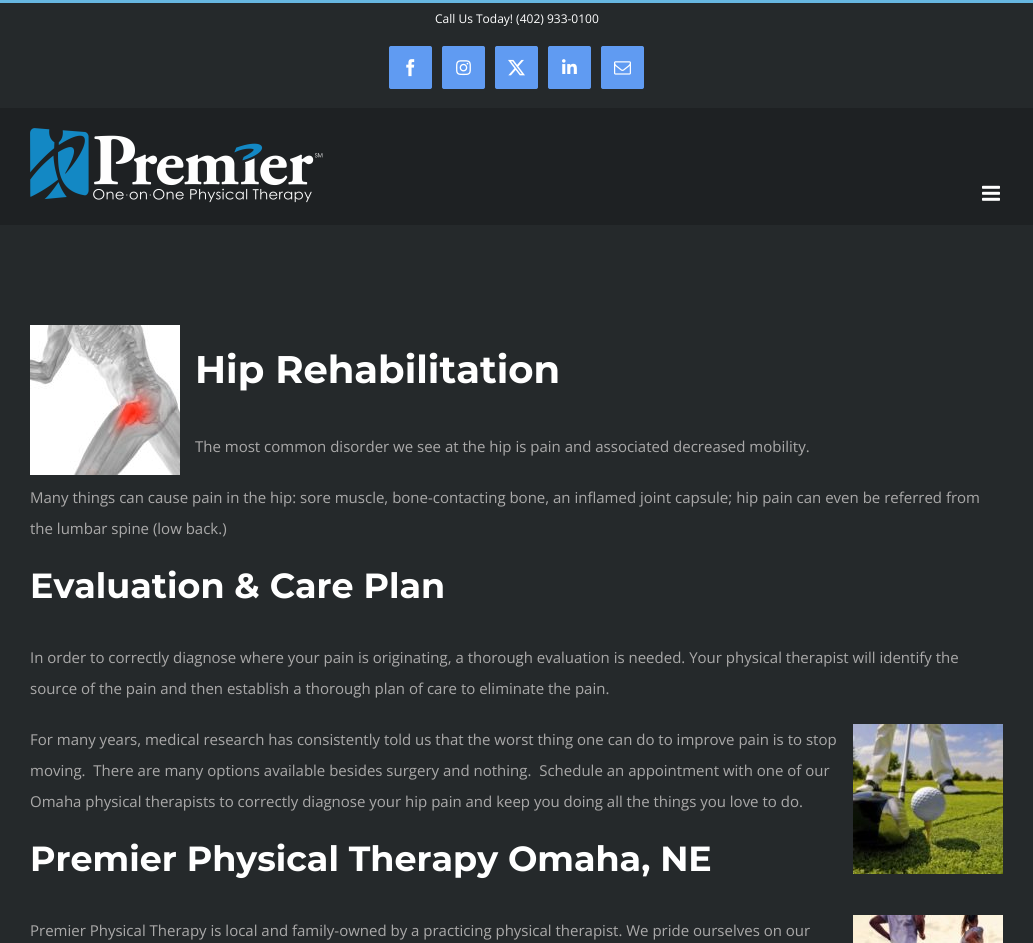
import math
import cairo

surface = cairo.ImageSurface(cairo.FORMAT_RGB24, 1033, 943)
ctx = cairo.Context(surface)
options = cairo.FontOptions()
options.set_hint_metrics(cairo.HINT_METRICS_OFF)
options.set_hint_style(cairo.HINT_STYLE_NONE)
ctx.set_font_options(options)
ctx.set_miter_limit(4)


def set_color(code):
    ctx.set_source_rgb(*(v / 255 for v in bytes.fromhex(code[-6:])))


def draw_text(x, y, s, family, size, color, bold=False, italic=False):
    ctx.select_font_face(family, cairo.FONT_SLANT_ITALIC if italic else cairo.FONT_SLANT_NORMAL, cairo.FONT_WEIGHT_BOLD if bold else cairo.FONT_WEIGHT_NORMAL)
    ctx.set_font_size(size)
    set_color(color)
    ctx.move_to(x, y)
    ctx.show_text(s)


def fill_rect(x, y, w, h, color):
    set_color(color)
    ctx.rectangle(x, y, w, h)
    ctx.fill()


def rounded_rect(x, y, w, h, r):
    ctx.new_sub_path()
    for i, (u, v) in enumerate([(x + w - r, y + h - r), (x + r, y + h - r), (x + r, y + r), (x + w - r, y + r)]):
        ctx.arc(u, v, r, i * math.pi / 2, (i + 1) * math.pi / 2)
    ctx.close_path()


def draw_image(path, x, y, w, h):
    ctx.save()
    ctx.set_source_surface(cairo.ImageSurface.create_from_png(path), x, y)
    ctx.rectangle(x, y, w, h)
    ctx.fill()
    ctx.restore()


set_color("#25292b")
ctx.paint()
fill_rect(0, 0, 1033, 3, "#67b7e1")
draw_text(435, 23, "Call Us Today! (402) 933-0100", "Open Sans", 12, "#ffffff")
set_color("#609bf2")
rounded_rect(389.5, 46.5, 42, 42, 1.5)
ctx.fill_preserve()
ctx.set_line_width(1)
ctx.stroke()
draw_image("assets/img1.png", 406, 59, 9, 18)
rounded_rect(442.5, 46.5, 42, 42, 1.5)
ctx.fill_preserve()
ctx.stroke()
draw_image("assets/img2.png", 456, 60, 15, 16)
rounded_rect(495.5, 46.5, 42, 42, 1.5)
ctx.fill_preserve()
ctx.stroke()
draw_image("assets/img3.png", 508, 59, 17, 17)
rounded_rect(548.5, 46.5, 42, 42, 1.5)
ctx.fill_preserve()
ctx.stroke()
draw_image("assets/img4.png", 562, 59, 15, 15)
rounded_rect(601.5, 46.5, 42, 42, 1.5)
ctx.fill_preserve()
ctx.stroke()
draw_image("assets/img5.png", 614, 61, 17, 14)
fill_rect(0, 108, 1033, 117, "#1e2123")
draw_image("assets/img6.png", 30, 128, 293, 75)
draw_image("assets/img7.png", 982, 185, 18, 16)
draw_image("assets/img8.png", 30, 325, 150, 150)
draw_text(195, 383, "Hip Rehabilitation", "Montserrat", 38.5, "#ffffff", bold=True)
draw_text(195, 452, "The most common disorder we see at the hip is pain and associated decreased mobility.", "Open Sans", 15, "#aaa9a9")
draw_text(30, 503, "Many things can cause pain in the hip: sore muscle, bone-contacting bone, an inflamed joint capsule; hip pain can even be referred from", "Open Sans", 15, "#aaa9a9")
draw_text(30, 534, "the lumbar spine (low back.)", "Open Sans", 15, "#aaa9a9")
draw_text(30, 598, "Evaluation & Care Plan", "Montserrat", 34.9, "#ffffff", bold=True)
draw_text(30, 663, "In order to correctly diagnose where your pain is originating, a thorough evaluation is needed. Your physical therapist will identify the", "Open Sans", 15, "#aaa9a9")
draw_text(30, 694, "source of the pain and then establish a thorough plan of care to eliminate the pain.", "Open Sans", 15, "#aaa9a9")
draw_text(30, 745, "For many years, medical research has consistently told us that the worst thing one can do to improve pain is to stop", "Open Sans", 15, "#aaa9a9")
draw_text(30, 776, "moving.  There are many options available besides surgery and nothing.  Schedule an appointment with one of our", "Open Sans", 15, "#aaa9a9")
draw_text(30, 807, "Omaha physical therapists to correctly diagnose your hip pain and keep you doing all the things you love to do.", "Open Sans", 15, "#aaa9a9")
draw_image("assets/img9.png", 853, 724, 150, 150)
draw_text(30, 871, "Premier Physical Therapy Omaha, NE", "Montserrat", 34.9, "#ffffff", bold=True)
draw_text(30, 936, "Premier Physical Therapy is local and family-owned by a practicing physical therapist. We pride ourselves on our", "Open Sans", 15, "#aaa9a9")
draw_image("assets/img10.png", 853, 915, 150, 28)
surface.write_to_png("output.png")
